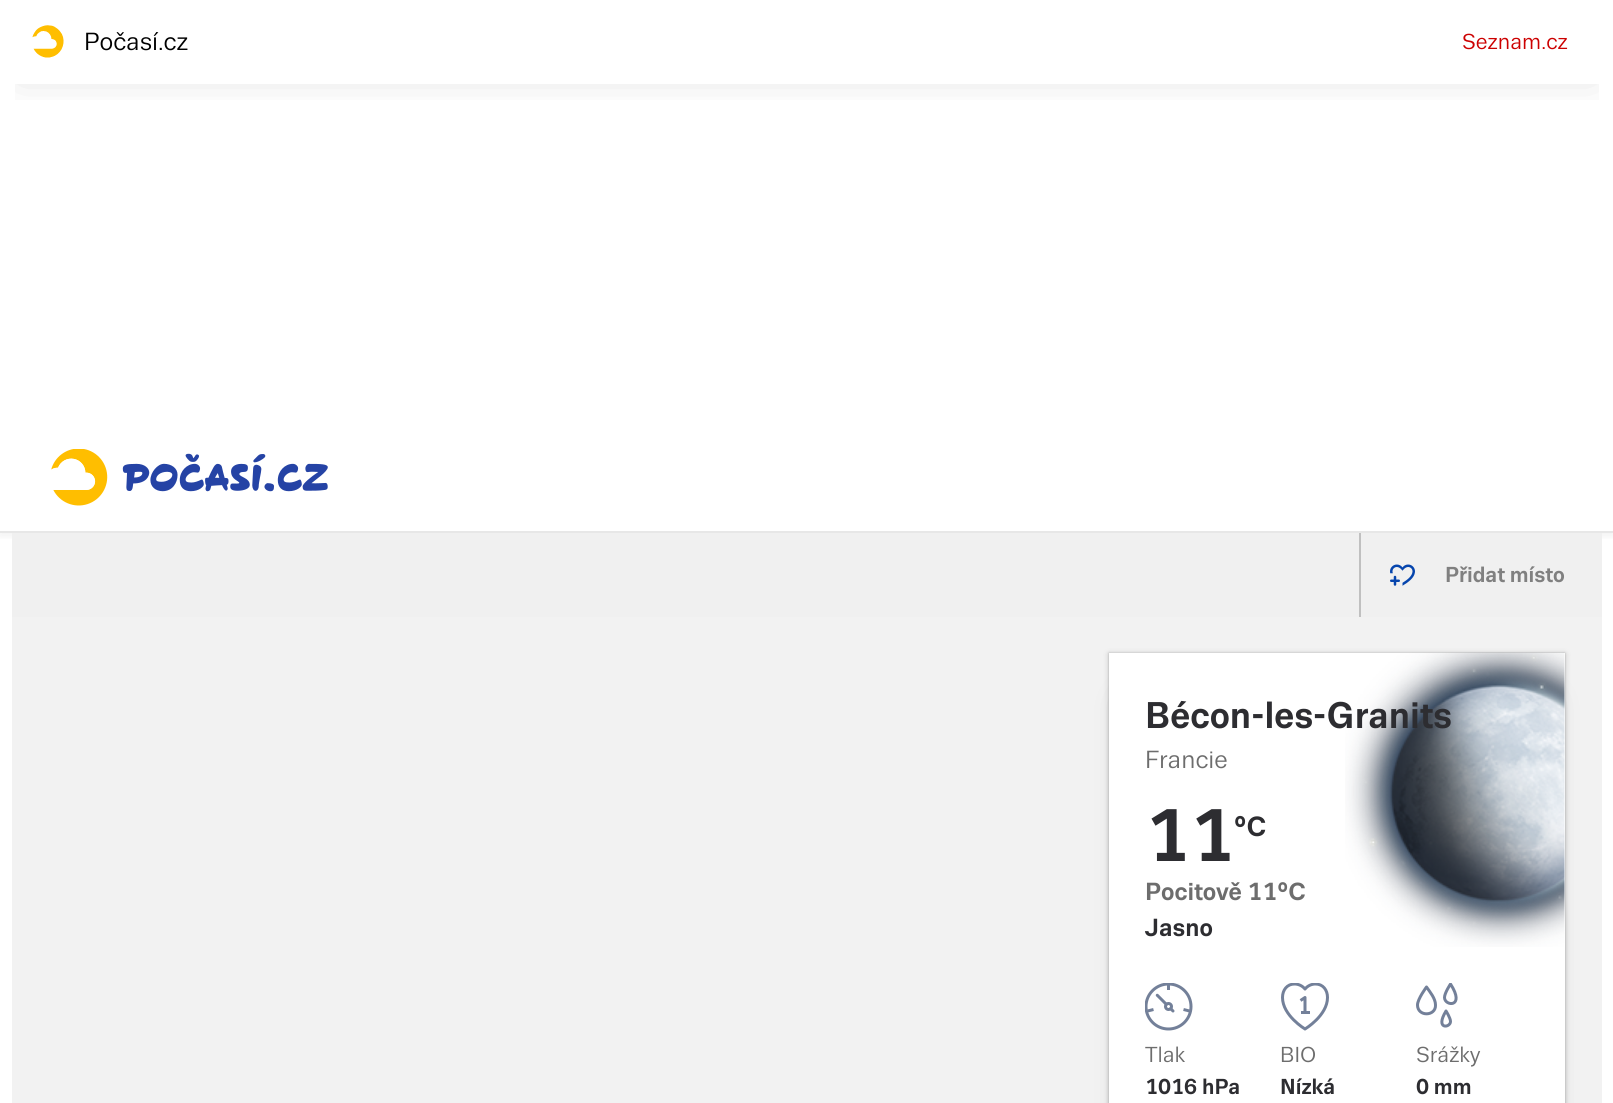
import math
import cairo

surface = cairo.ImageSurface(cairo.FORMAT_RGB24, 1613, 1103)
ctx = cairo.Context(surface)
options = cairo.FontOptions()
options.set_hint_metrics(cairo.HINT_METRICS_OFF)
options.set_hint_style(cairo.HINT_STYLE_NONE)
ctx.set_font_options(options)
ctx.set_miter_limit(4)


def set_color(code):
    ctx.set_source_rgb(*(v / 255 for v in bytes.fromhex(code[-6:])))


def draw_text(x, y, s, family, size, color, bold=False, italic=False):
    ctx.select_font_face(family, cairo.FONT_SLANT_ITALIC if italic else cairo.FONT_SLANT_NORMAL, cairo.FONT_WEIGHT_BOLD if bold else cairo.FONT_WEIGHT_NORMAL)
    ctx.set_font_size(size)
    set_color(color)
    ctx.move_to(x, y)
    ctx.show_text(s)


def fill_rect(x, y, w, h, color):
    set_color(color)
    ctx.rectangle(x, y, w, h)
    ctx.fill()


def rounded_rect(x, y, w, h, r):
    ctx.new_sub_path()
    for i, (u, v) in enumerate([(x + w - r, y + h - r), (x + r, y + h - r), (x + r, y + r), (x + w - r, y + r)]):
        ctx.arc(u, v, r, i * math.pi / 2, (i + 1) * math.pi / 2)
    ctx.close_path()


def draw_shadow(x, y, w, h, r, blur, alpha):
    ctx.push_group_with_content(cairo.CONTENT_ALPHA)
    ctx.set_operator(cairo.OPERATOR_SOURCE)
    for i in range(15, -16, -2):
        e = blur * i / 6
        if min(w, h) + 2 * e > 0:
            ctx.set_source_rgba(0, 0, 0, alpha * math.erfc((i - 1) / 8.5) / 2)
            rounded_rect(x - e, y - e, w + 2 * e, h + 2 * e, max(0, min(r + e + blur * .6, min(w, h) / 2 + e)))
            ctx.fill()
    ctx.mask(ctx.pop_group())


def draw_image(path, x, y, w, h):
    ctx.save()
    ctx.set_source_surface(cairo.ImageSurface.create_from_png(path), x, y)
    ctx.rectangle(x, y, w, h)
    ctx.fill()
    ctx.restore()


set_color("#ffffff")
ctx.paint()
ctx.save()
ctx.rectangle(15, 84, 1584, 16)
ctx.clip()
set_color("#000000")
draw_shadow(18, 30, 1578, 48, 0, 22.5, 0.12)
ctx.restore()
draw_image("assets/img1.png", 32, 25, 32, 33)
draw_text(84, 50, "Počasí.cz", "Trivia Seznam", 24, "#000000")
draw_text(1462, 49, "Seznam.cz", "Trivia Seznam", 21, "#cc0000")
ctx.save()
ctx.rectangle(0, 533, 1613, 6)
ctx.clip()
set_color("#4e4e4e")
draw_shadow(0, 428, 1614, 108, 0, 4, 0.08)
ctx.restore()
fill_rect(0, 531, 1613, 2, "#e7e7e7")
draw_image("assets/img2.png", 51, 449, 277, 57)
fill_rect(12, 533, 1590, 84, "#f0f0f0")
fill_rect(1359, 533, 2, 84, "#c0c0c0")
draw_image("assets/img3.png", 1390, 564, 25, 22)
draw_text(1445, 582, "Přidat místo", "Trivia Seznam", 21, "#808080", bold=True)
fill_rect(12, 617, 1590, 486, "#f2f2f2")
set_color("#000000")
draw_shadow(1133, 701, 408, 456, 0, 18, 0.3)
draw_shadow(1109, 654, 456, 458, 0, 3, 0.2)
draw_shadow(1109, 653, 456, 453, 0, 1, 0.2)
fill_rect(1109, 653, 456, 450, "#ffffff")
draw_image("assets/img4.png", 1345, 652, 220, 295)
draw_text(1145, 728, "Bécon-les-Granits", "Trivia Seznam", 36, "#2d2d31", bold=True)
draw_text(1145, 768, "Francie", "Trivia Seznam", 24, "#6d6d6d")
draw_text(1145, 861, "11", "Trivia Seznam", 72, "#2d2d31", bold=True)
draw_text(1234, 836, "°C", "Trivia Seznam", 27, "#2d2d31", bold=True)
draw_text(1145, 900, "Pocitově 11°C", "Trivia Seznam", 24, "#6d6d6d", bold=True)
draw_text(1145, 936, "Jasno", "Trivia Seznam", 24, "#2d2d31", bold=True)
draw_image("assets/img5.png", 1145, 983, 48, 48)
draw_text(1145, 1062, "Tlak", "Trivia Seznam", 21, "#6d6d6d")
draw_text(1145, 1094, "1016 hPa", "Trivia Seznam", 21, "#2d2d31", bold=True)
draw_image("assets/img6.png", 1281, 983, 48, 48)
draw_text(1280, 1062, "BIO", "Trivia Seznam", 21, "#6d6d6d")
draw_text(1280, 1094, "Nízká", "Trivia Seznam", 21, "#2d2d31", bold=True)
ctx.save()
ctx.rectangle(1416, 983, 48, 48)
ctx.clip()
ctx.new_path()
ctx.move_to(1417.5, 1005)
ctx.curve_to(1417.5, 999, 1426.5, 987, 1426.5, 987)
ctx.curve_to(1430, 992, 1435.5, 998.5, 1435.5, 1005)
ctx.curve_to(1436, 1016.5, 1417.5, 1017, 1417.5, 1005)
ctx.close_path()
ctx.move_to(1444.5, 997.5)
ctx.curve_to(1444.5, 993, 1450.5, 984, 1450.5, 984)
ctx.curve_to(1466, 1008, 1444.5, 1006.5, 1444.5, 997.5)
ctx.close_path()
ctx.move_to(1450.5, 1021.5)
ctx.curve_to(1450.5, 1018, 1446, 1011, 1446, 1011)
ctx.curve_to(1434.5, 1030, 1450.5, 1028, 1450.5, 1021.5)
ctx.close_path()
set_color("#738099")
ctx.set_line_width(3)
ctx.set_line_join(cairo.LINE_JOIN_ROUND)
ctx.stroke()
ctx.restore()
draw_text(1416, 1062, "Srážky", "Trivia Seznam", 21, "#6d6d6d")
draw_text(1416, 1094, "0 mm", "Trivia Seznam", 21, "#2d2d31", bold=True)
surface.write_to_png("output.png")
